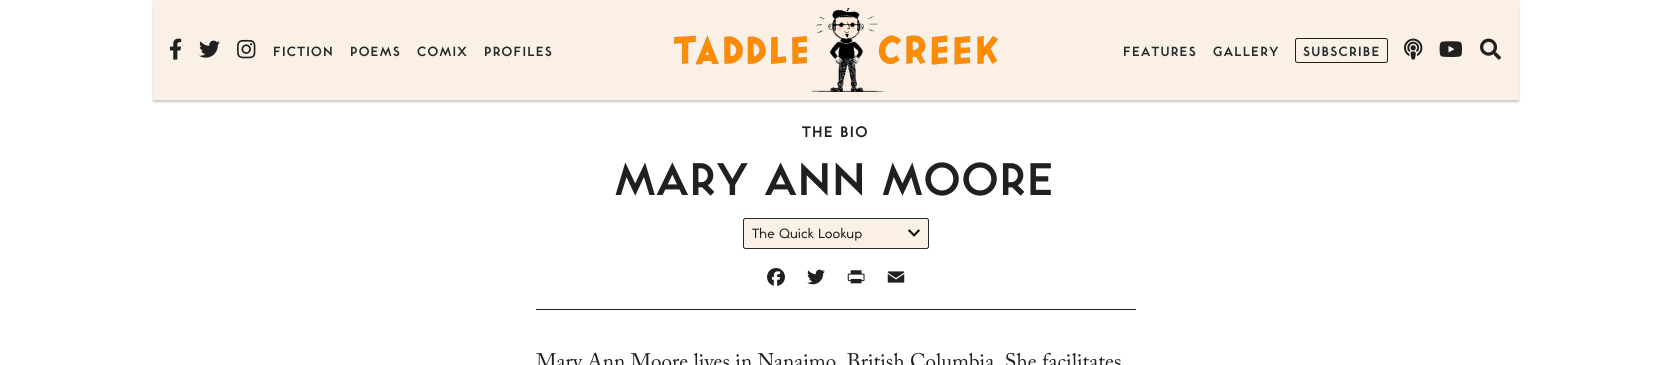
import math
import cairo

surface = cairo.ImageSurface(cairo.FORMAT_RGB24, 1671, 365)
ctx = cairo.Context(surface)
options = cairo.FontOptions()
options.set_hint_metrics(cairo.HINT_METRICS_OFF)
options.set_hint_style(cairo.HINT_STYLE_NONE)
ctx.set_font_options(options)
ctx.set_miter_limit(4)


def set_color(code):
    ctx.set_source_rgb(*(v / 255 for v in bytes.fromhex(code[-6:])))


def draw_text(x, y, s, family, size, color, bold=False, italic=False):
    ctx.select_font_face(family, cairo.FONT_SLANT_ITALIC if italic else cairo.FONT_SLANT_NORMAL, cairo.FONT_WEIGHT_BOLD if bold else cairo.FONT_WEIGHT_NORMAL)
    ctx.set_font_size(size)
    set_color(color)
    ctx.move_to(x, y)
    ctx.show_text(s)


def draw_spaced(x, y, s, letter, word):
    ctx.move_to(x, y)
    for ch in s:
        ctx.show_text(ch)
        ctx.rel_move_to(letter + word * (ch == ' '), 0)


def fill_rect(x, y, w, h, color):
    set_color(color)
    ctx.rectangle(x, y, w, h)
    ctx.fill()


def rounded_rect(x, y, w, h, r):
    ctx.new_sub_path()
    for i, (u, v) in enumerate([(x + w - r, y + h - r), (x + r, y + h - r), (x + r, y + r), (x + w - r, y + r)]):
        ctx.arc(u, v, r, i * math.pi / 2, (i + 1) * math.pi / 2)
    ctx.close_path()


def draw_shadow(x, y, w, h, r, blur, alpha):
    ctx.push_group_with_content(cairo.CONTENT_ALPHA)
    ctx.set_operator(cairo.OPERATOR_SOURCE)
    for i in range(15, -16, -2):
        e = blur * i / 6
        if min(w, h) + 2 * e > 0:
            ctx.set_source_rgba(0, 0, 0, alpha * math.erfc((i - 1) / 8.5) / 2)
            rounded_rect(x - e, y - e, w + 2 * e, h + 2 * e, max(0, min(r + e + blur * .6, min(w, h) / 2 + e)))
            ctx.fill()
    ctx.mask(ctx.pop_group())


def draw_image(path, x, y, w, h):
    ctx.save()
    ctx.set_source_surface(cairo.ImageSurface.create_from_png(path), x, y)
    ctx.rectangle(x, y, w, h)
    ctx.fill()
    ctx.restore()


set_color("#ffffff")
ctx.paint()
set_color("#969696")
draw_shadow(153, 2, 1366, 100, 0, 1, 0.5)
fill_rect(153, 0, 1366, 100, "#faf0e6")
draw_image("assets/img1.png", 812, 8, 72, 84)
draw_image("assets/img2.png", 674, 35, 133, 30)
draw_image("assets/img3.png", 879, 35, 119, 30)
draw_image("assets/img4.png", 169, 38, 13, 22)
draw_image("assets/img5.png", 199, 40, 21, 18)
draw_image("assets/img6.png", 237, 39, 19, 20)
ctx.select_font_face("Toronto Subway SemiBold")
ctx.set_font_size(14)
set_color("#232b2b")
draw_spaced(273, 56, "FICTION", 1.25, 0)
draw_spaced(350, 56, "POEMS", 1.25, 0)
draw_spaced(417, 56, "COMIX", 1.25, 0)
draw_spaced(484, 56, "PROFILES", 1.25, 0)
draw_spaced(1123, 56, "FEATURES", 1.25, 0)
draw_spaced(1213, 56, "GALLERY", 1.25, 0)
rounded_rect(1295.5, 38.5, 92, 24, 2)
set_color("#202020")
ctx.set_line_width(1)
ctx.stroke()
set_color("#232b2b")
draw_spaced(1303, 56, "SUBSCRIBE", 1.25, 0)
draw_image("assets/img7.png", 1404, 38, 19, 22)
draw_image("assets/img8.png", 1439, 41, 23, 16)
draw_image("assets/img9.png", 1480, 38, 21, 22)
fill_rect(536, 309, 600, 1, "#202020")
ctx.set_font_size(16)
draw_spaced(802, 137, "THE BIO", 1.25, 0)
ctx.set_font_size(48)
draw_spaced(615, 195, "MARY ANN MOORE", 1.25, 0)
set_color("#faf0e6")
rounded_rect(743, 218, 186, 31, 2.5)
ctx.fill()
draw_image("assets/img10.png", 908, 229, 12, 8)
rounded_rect(743.5, 218.5, 185, 30, 2)
set_color("#232b2b")
ctx.stroke()
draw_text(752, 238, "The Quick Lookup", "Toronto Subway", 14, "#202020", italic=True)
draw_image("assets/img11.png", 767, 268, 18, 18)
draw_image("assets/img12.png", 807, 269, 18, 16)
draw_image("assets/img13.png", 847, 270, 18, 14)
draw_image("assets/img14.png", 887, 271, 18, 12)
draw_text(536, 368, "Mary Ann Moore lives in Nanaimo, British Columbia. She facilitates", "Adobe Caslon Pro", 21, "#202020")
surface.write_to_png("output.png")
